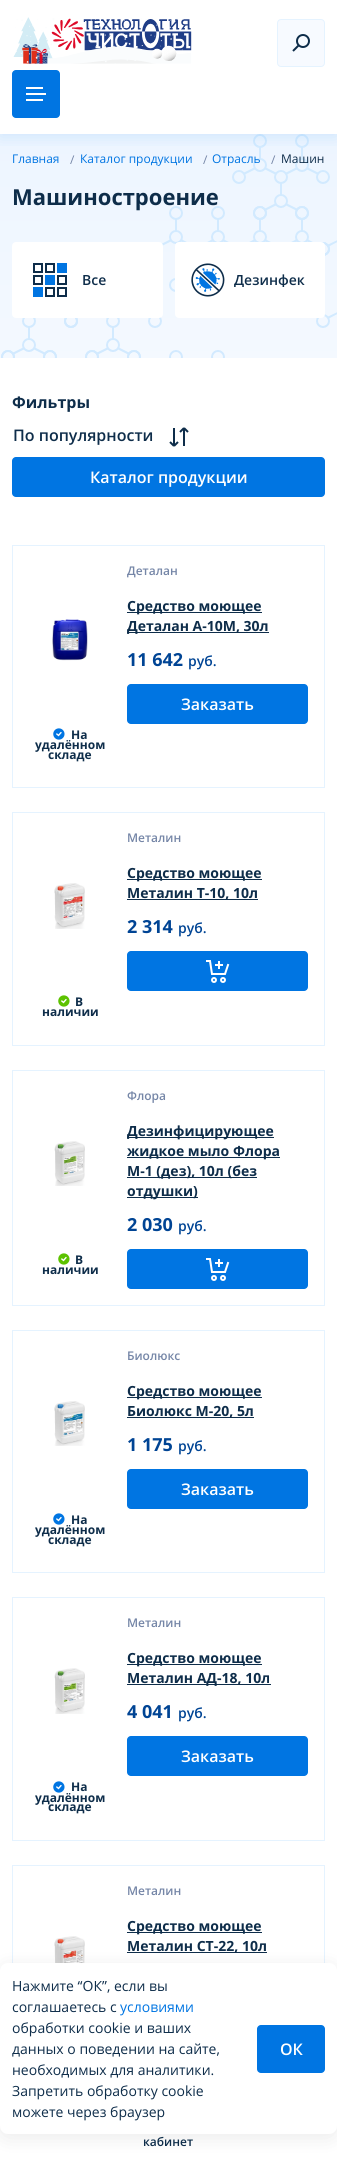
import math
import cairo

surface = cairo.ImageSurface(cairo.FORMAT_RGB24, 337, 2164)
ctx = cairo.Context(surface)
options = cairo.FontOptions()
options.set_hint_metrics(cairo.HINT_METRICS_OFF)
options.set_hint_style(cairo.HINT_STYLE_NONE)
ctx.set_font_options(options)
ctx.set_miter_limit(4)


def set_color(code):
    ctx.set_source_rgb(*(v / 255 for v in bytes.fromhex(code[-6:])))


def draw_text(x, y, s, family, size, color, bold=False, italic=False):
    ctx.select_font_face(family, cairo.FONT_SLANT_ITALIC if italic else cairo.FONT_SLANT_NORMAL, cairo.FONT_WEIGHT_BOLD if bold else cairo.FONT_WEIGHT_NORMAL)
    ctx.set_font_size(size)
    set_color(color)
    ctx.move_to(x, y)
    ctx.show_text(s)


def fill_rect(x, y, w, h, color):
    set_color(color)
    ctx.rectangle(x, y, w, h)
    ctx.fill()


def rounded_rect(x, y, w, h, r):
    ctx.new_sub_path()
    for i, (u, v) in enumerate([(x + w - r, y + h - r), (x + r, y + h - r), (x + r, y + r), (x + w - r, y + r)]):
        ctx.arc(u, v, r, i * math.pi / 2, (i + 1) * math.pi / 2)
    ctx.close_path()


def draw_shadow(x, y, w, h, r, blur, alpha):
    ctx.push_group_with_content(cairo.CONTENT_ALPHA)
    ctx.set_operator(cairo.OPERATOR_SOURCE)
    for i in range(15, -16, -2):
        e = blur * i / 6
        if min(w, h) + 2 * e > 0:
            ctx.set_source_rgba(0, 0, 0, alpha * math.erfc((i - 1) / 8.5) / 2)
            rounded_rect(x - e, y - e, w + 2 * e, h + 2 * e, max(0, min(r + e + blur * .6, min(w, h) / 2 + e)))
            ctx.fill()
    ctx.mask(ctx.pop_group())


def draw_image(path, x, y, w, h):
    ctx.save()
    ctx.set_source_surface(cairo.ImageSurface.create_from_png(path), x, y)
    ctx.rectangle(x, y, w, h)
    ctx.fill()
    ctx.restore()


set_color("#ffffff")
ctx.paint()
gradient = cairo.LinearGradient(168, 134, 169, 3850)
gradient.add_color_stop_rgba(0, 0.929, 0.961, 1, 1)
gradient.add_color_stop_rgba(0.16, 1, 1, 1, 1)
ctx.set_source(gradient)
ctx.rectangle(0, 134, 337, 224)
ctx.fill()
draw_image("assets/img3.png", 1, 134, 336, 224)
ctx.save()
ctx.rectangle(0, 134, 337, 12)
ctx.clip()
set_color("#3a9af3")
draw_shadow(0, 3, 337, 134, 0, 8, 0.17)
ctx.restore()
draw_image("assets/img1.png", 13, 17, 179, 47)
set_color("#f7faff")
rounded_rect(277.5, 19.5, 47, 47, 3.5)
ctx.fill_preserve()
set_color("#e5f3ff")
ctx.set_line_width(1)
ctx.stroke()
draw_image("assets/img2.png", 292, 34, 18, 18)
set_color("#0075e2")
rounded_rect(12, 70, 48, 48, 4)
ctx.fill()
fill_rect(26, 93, 20, 2, "#ffffff")
fill_rect(26, 87, 17, 2, "#ffffff")
fill_rect(26, 99, 17, 2, "#ffffff")
draw_text(12, 163, "Главная", "Open Sans", 12, "#0075e2")
draw_text(70, 164, "/", "Open Sans", 12, "#7586a7")
draw_text(80, 163, "Каталог продукции", "Open Sans", 12, "#0075e2")
draw_text(203, 164, "/", "Open Sans", 12, "#7586a7")
draw_text(212, 163, "Отрасль", "Open Sans", 12, "#0075e2")
draw_text(271, 164, "/", "Open Sans", 12, "#7586a7")
draw_text(281, 163, "Машин", "Open Sans", 12, "#0e2d4a")
draw_text(12, 205, "Машиностроение", "Open Sans", 22, "#0e2d4a", bold=True)
set_color("#ffffff")
rounded_rect(13, 243, 149, 74, 3)
ctx.fill_preserve()
ctx.set_line_width(2)
ctx.stroke()
draw_image("assets/img4.png", 33, 263, 34, 34)
draw_text(82, 285, "Все", "Open Sans SemiBold", 14, "#0e2d4a")
set_color("#ffffff")
rounded_rect(176, 243, 148, 74, 3)
ctx.fill_preserve()
ctx.stroke()
draw_image("assets/img5.png", 191, 263, 34, 34)
ctx.save()
ctx.rectangle(234, 273, 77, 14)
ctx.clip()
draw_text(234, 285, "Дезинфек", "Open Sans SemiBold", 14, "#0e2d4a")
ctx.restore()
draw_text(12, 408, "Фильтры", "Open Sans", 16, "#0e2d4a", bold=True)
draw_text(13, 441, "По популярности", "Open Sans SemiBold", 16, "#0e2d4a")
draw_image("assets/img6.png", 169, 427, 20, 20)
set_color("#0075e2")
rounded_rect(12, 457, 313, 40, 4)
ctx.fill()
draw_text(90, 483, "Каталог продукции", "Open Sans SemiBold", 16, "#ffffff")
ctx.rectangle(12.5, 545.5, 312, 242)
set_color("#e5f3ff")
ctx.set_line_width(1)
ctx.stroke()
draw_text(127, 575, "Деталан", "Open Sans SemiBold", 12, "#7586a7")
fill_rect(127, 612, 135, 1, "#0e2d4a")
draw_text(127, 611, "Средство моющее", "Open Sans", 14, "#0e2d4a", bold=True)
fill_rect(127, 632, 142, 1, "#0e2d4a")
draw_text(127, 631, "Деталан А-10М, 30л", "Open Sans", 14, "#0e2d4a", bold=True)
draw_text(127, 666, "11 642", "Open Sans", 18, "#004494", bold=True)
draw_text(188, 666, "руб.", "Open Sans SemiBold", 14, "#004494")
set_color("#0075e2")
rounded_rect(127, 684, 181, 40, 4)
ctx.fill()
draw_text(181, 710, "Заказать", "Open Sans SemiBold", 16, "#ffffff")
draw_image("assets/img7.png", 52, 619, 36, 42)
draw_image("assets/img8.png", 53, 728, 12, 12)
draw_text(71, 739, "На", "Open Sans", 12, "#0e2d4a", bold=True)
draw_text(35, 749, "удалённом", "Open Sans", 12, "#0e2d4a", bold=True)
draw_text(48, 759, "складе", "Open Sans", 12, "#0e2d4a", bold=True)
ctx.rectangle(12.5, 812.5, 312, 233)
set_color("#e5f3ff")
ctx.stroke()
draw_text(127, 842, "Металин", "Open Sans SemiBold", 12, "#7586a7")
fill_rect(127, 879, 135, 1, "#0e2d4a")
draw_text(127, 878, "Средство моющее", "Open Sans", 14, "#0e2d4a", bold=True)
fill_rect(127, 899, 131, 1, "#0e2d4a")
draw_text(127, 898, "Металин Т-10, 10л", "Open Sans", 14, "#0e2d4a", bold=True)
draw_text(127, 933, "2 314", "Open Sans", 18, "#004494", bold=True)
draw_text(178, 933, "руб.", "Open Sans SemiBold", 14, "#004494")
set_color("#0075e2")
rounded_rect(127, 951, 181, 40, 4)
ctx.fill()
draw_image("assets/img9.png", 206, 960, 24, 23)
draw_image("assets/img10.png", 54, 883, 31, 46)
draw_image("assets/img11.png", 58, 995, 12, 12)
draw_text(75, 1006, "В", "Open Sans", 12, "#0e2d4a", bold=True)
draw_text(42, 1016, "наличии", "Open Sans", 12, "#0e2d4a", bold=True)
ctx.rectangle(12.5, 1070.5, 312, 235)
set_color("#e5f3ff")
ctx.stroke()
draw_text(127, 1100, "Флора", "Open Sans SemiBold", 12, "#7586a7")
fill_rect(127, 1137, 147, 1, "#0e2d4a")
draw_text(127, 1136, "Дезинфицирующее", "Open Sans", 14, "#0e2d4a", bold=True)
fill_rect(127, 1157, 153, 1, "#0e2d4a")
draw_text(127, 1156, "жидкое мыло Флора", "Open Sans", 14, "#0e2d4a", bold=True)
fill_rect(127, 1177, 130, 1, "#0e2d4a")
draw_text(127, 1176, "М-1 (дез), 10л (без", "Open Sans", 14, "#0e2d4a", bold=True)
fill_rect(127, 1197, 71, 1, "#0e2d4a")
draw_text(127, 1196, "отдушки)", "Open Sans", 14, "#0e2d4a", bold=True)
draw_text(127, 1231, "2 030", "Open Sans", 18, "#004494", bold=True)
draw_text(178, 1231, "руб.", "Open Sans SemiBold", 14, "#004494")
set_color("#0075e2")
rounded_rect(127, 1249, 181, 40, 4)
ctx.fill()
draw_image("assets/img9.png", 206, 1258, 24, 23)
draw_image("assets/img12.png", 54, 1141, 31, 45)
draw_image("assets/img11.png", 58, 1253, 12, 12)
draw_text(75, 1264, "В", "Open Sans", 12, "#0e2d4a", bold=True)
draw_text(42, 1274, "наличии", "Open Sans", 12, "#0e2d4a", bold=True)
ctx.rectangle(12.5, 1330.5, 312, 242)
set_color("#e5f3ff")
ctx.stroke()
draw_text(127, 1360, "Биолюкс", "Open Sans SemiBold", 12, "#7586a7")
fill_rect(127, 1397, 135, 1, "#0e2d4a")
draw_text(127, 1396, "Средство моющее", "Open Sans", 14, "#0e2d4a", bold=True)
fill_rect(127, 1417, 127, 1, "#0e2d4a")
draw_text(127, 1416, "Биолюкс М-20, 5л", "Open Sans", 14, "#0e2d4a", bold=True)
draw_text(127, 1451, "1 175", "Open Sans", 18, "#004494", bold=True)
draw_text(178, 1451, "руб.", "Open Sans SemiBold", 14, "#004494")
set_color("#0075e2")
rounded_rect(127, 1469, 181, 40, 4)
ctx.fill()
draw_text(181, 1495, "Заказать", "Open Sans SemiBold", 16, "#ffffff")
draw_image("assets/img13.png", 54, 1401, 31, 45)
draw_image("assets/img8.png", 53, 1513, 12, 12)
draw_text(71, 1524, "На", "Open Sans", 12, "#0e2d4a", bold=True)
draw_text(35, 1534, "удалённом", "Open Sans", 12, "#0e2d4a", bold=True)
draw_text(48, 1544, "складе", "Open Sans", 12, "#0e2d4a", bold=True)
ctx.rectangle(12.5, 1597.5, 312, 243)
set_color("#e5f3ff")
ctx.stroke()
draw_text(127, 1627, "Металин", "Open Sans SemiBold", 12, "#7586a7")
fill_rect(127, 1664, 135, 1, "#0e2d4a")
draw_text(127, 1663, "Средство моющее", "Open Sans", 14, "#0e2d4a", bold=True)
fill_rect(127, 1684, 144, 1, "#0e2d4a")
draw_text(127, 1683, "Металин АД-18, 10л", "Open Sans", 14, "#0e2d4a", bold=True)
draw_text(127, 1718, "4 041", "Open Sans", 18, "#004494", bold=True)
draw_text(178, 1718, "руб.", "Open Sans SemiBold", 14, "#004494")
set_color("#0075e2")
rounded_rect(127, 1736, 181, 40, 4)
ctx.fill()
draw_text(181, 1762, "Заказать", "Open Sans SemiBold", 16, "#ffffff")
draw_image("assets/img14.png", 54, 1668, 31, 46)
draw_image("assets/img8.png", 53, 1781, 12, 12)
draw_text(71, 1791, "На", "Open Sans", 12, "#0e2d4a", bold=True)
draw_text(35, 1802, "удалённом", "Open Sans", 12, "#0e2d4a", bold=True)
draw_text(48, 1811, "складе", "Open Sans", 12, "#0e2d4a", bold=True)
ctx.rectangle(12.5, 1865.5, 312, 242)
set_color("#e5f3ff")
ctx.stroke()
draw_image("assets/img15.png", 54, 1936, 31, 27)
draw_text(127, 1895, "Металин", "Open Sans SemiBold", 12, "#7586a7")
fill_rect(127, 1932, 135, 1, "#0e2d4a")
draw_text(127, 1931, "Средство моющее", "Open Sans", 14, "#0e2d4a", bold=True)
fill_rect(127, 1952, 140, 1, "#0e2d4a")
draw_text(127, 1951, "Металин СТ-22, 10л", "Open Sans", 14, "#0e2d4a", bold=True)
set_color("#000000")
draw_shadow(0, 1967, 337, 171, 8, 10, 0.08)
set_color("#ffffff")
rounded_rect(0, 1963, 337, 171, 8)
ctx.fill()
draw_text(12, 1991, "Нажмите “ОК”, если вы", "Open Sans", 14, "#0e2d4a")
draw_text(12, 2012, "соглашаетесь с", "Open Sans", 14, "#0e2d4a")
draw_text(120, 2012, "условиями", "Open Sans", 14, "#0075e2")
draw_text(12, 2033, "обработки cookie и ваших", "Open Sans", 14, "#0e2d4a")
draw_text(12, 2054, "данных о поведении на сайте,", "Open Sans", 14, "#0e2d4a")
draw_text(12, 2075, "необходимых для аналитики.", "Open Sans", 14, "#0e2d4a")
draw_text(12, 2096, "Запретить обработку cookie", "Open Sans", 14, "#0e2d4a")
draw_text(12, 2117, "можете через браузер", "Open Sans", 14, "#0e2d4a")
set_color("#0075e2")
rounded_rect(257, 2025, 68, 48, 4)
ctx.fill()
draw_text(280, 2055, "ОК", "Open Sans SemiBold", 16, "#ffffff")
draw_text(143, 2146, "кабинет", "Open Sans SemiBold", 12, "#0e2d4a")
surface.write_to_png("output.png")
